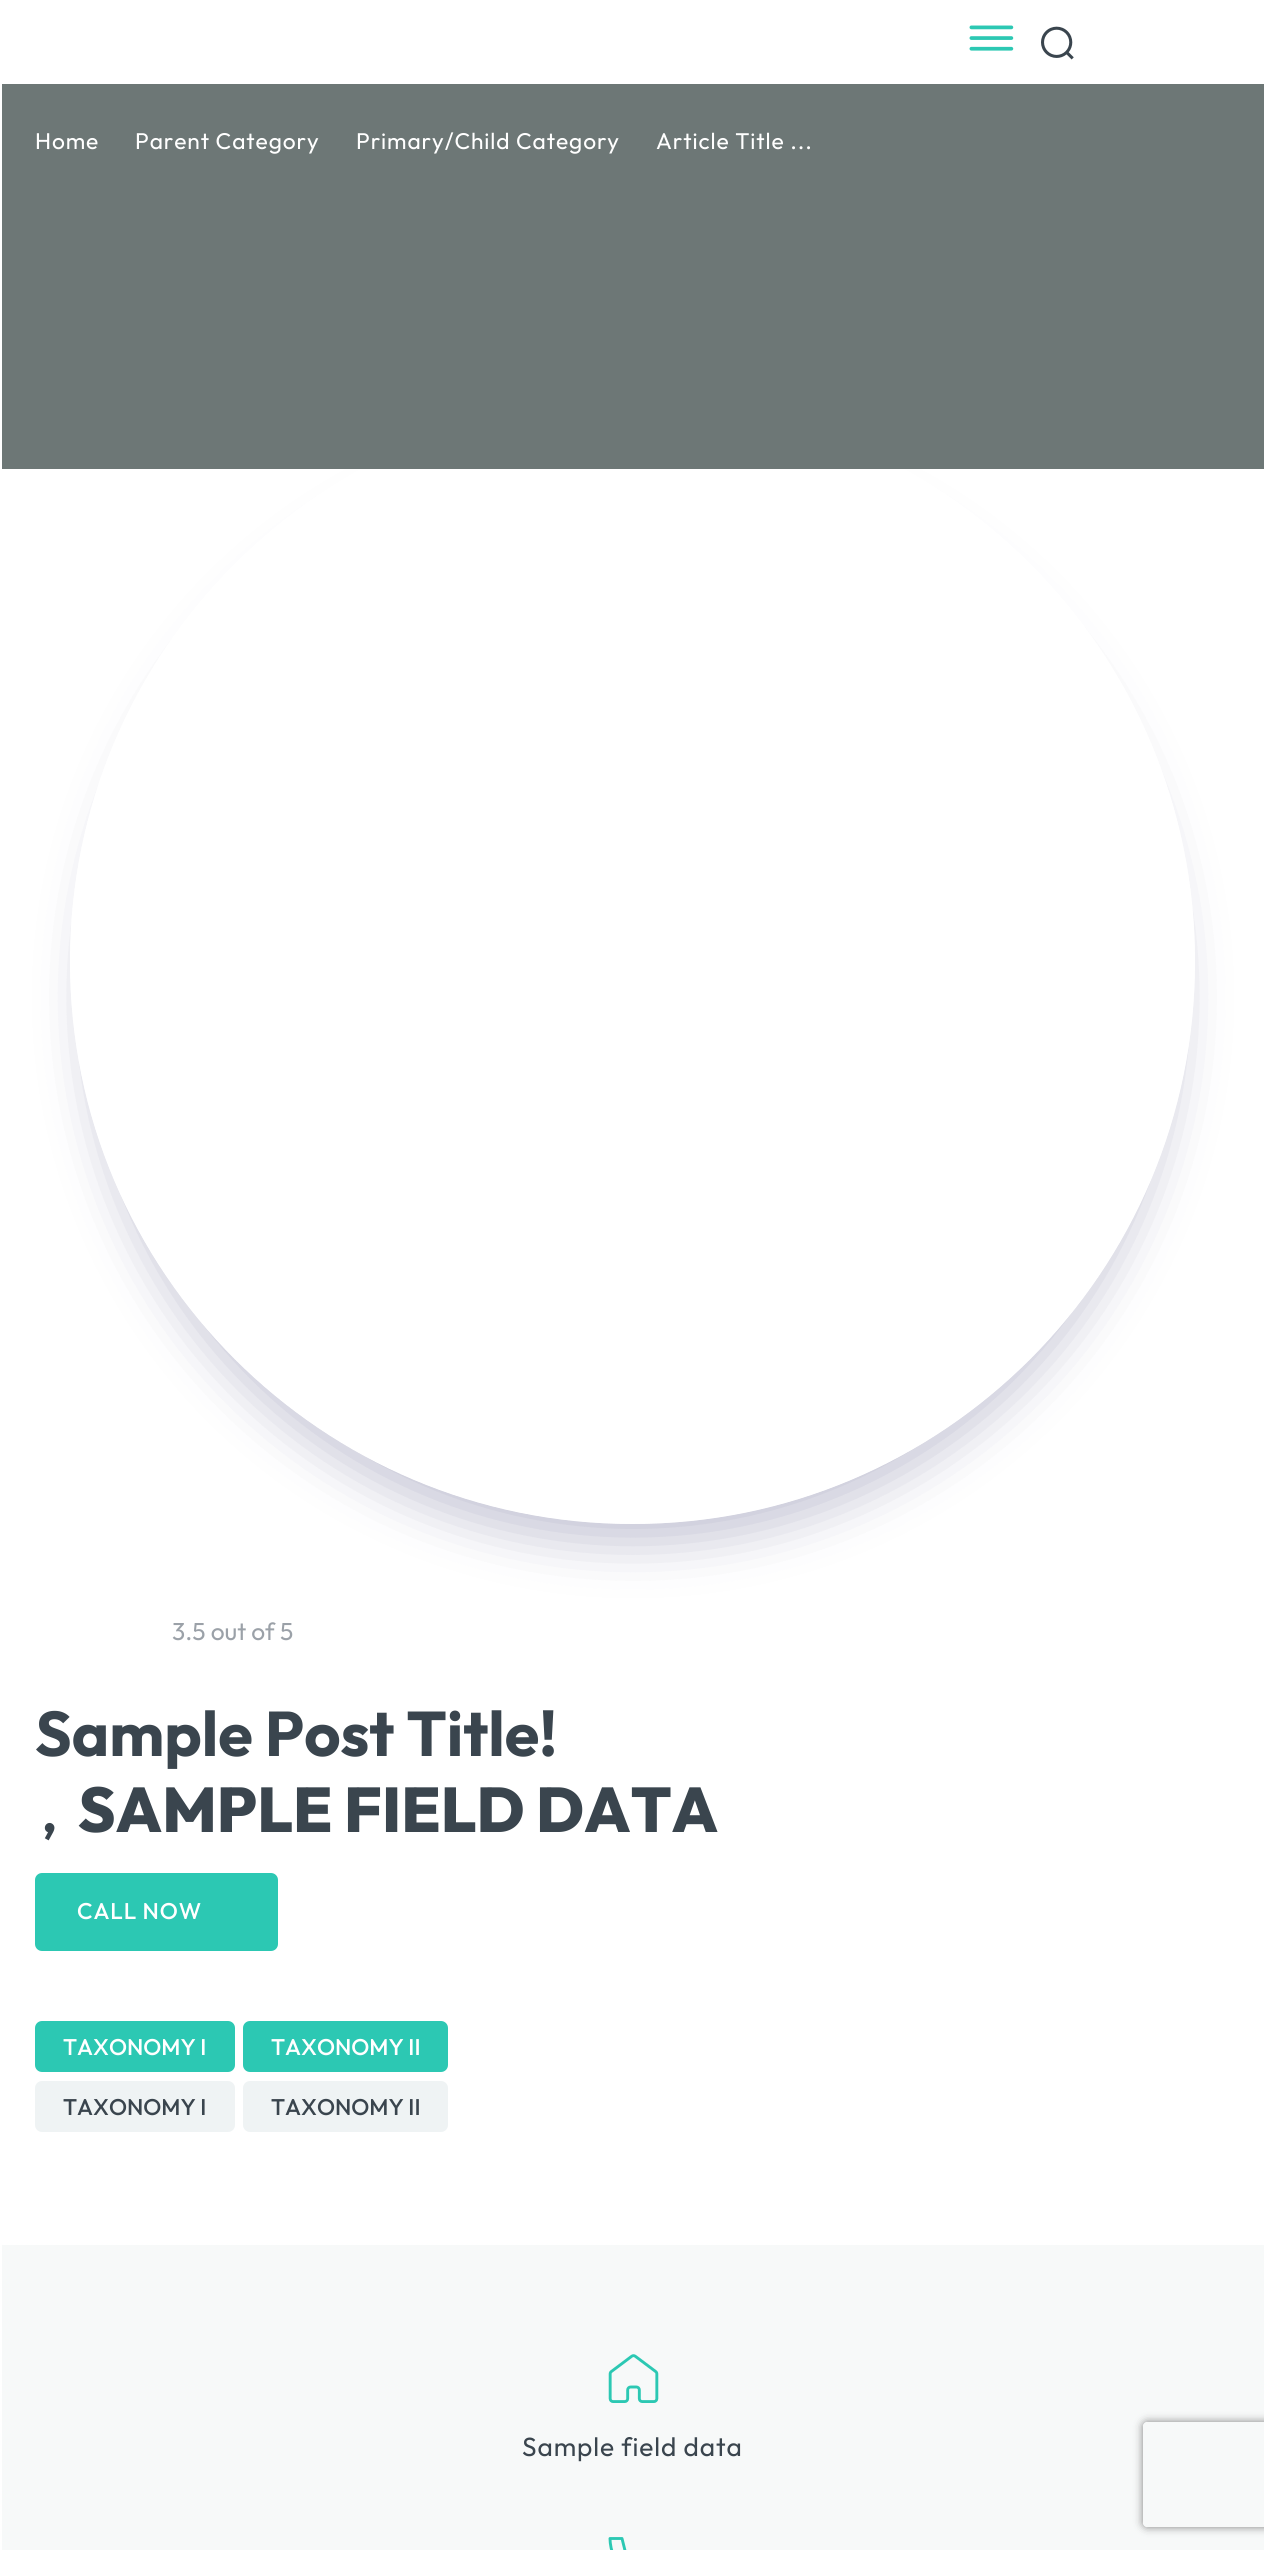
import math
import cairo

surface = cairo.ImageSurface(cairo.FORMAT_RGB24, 1264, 2550)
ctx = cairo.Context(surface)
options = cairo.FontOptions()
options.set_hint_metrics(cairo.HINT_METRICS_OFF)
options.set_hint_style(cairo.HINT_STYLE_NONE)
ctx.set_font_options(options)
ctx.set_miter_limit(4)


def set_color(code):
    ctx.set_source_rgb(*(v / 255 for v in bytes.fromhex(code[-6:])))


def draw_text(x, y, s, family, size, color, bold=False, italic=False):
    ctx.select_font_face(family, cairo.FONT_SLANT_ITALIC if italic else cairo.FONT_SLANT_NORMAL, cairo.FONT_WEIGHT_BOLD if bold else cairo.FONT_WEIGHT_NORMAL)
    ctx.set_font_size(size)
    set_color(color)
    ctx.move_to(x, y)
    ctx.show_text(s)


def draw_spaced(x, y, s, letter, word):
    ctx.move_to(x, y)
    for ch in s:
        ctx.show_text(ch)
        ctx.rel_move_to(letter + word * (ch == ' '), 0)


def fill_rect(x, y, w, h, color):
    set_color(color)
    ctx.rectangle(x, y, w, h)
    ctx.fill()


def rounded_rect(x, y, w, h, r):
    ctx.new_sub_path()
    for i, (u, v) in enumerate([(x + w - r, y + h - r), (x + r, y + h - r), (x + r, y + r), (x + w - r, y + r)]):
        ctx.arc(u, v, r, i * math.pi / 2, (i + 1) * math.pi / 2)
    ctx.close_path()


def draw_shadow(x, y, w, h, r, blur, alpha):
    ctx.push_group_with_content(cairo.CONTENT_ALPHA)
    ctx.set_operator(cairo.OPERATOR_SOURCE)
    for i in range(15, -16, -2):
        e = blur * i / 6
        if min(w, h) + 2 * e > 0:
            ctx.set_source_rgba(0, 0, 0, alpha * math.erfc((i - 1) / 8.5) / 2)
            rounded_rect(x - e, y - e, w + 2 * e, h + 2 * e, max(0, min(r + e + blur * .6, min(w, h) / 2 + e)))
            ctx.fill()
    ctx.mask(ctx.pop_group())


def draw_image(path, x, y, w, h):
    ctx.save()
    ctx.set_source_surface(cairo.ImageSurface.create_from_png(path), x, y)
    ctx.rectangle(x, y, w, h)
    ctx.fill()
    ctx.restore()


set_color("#ffffff")
ctx.paint()
draw_image("assets/img1.png", 969, 25, 45, 26)
draw_image("assets/img2.png", 1041, 26, 33, 34)
fill_rect(2, 84, 1262, 385, "#6d7776")
ctx.select_font_face("Outfit")
ctx.set_font_size(22.75)
set_color("#ffffff")
draw_spaced(35, 149, "Home", 0.9, 0)
draw_spaced(135, 149, "Parent Category", 0.9, 0)
draw_spaced(356, 149, "Primary/Child Category", 0.9, 0)
draw_spaced(656, 149, "Article Title ...", 0.9, 0)
ctx.save()
ctx.set_fill_rule(cairo.FILL_RULE_EVEN_ODD)
ctx.new_path()
ctx.move_to(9, 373)
ctx.line_to(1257, 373)
ctx.line_to(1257, 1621)
ctx.line_to(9, 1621)
ctx.close_path()
ctx.move_to(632.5, 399)
ctx.curve_to(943, 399, 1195, 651, 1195, 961.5)
ctx.curve_to(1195, 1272, 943, 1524, 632.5, 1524)
ctx.curve_to(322, 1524, 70, 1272, 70, 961.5)
ctx.curve_to(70, 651, 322, 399, 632.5, 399)
ctx.close_path()
ctx.clip()
set_color("#020247")
draw_shadow(88, 452, 1090, 1090, 545, 26, 0.24)
ctx.restore()
draw_text(172, 1640, "3.5 out of 5", "Outfit", 24.5, "#9ba1a8")
draw_text(35, 1756, "Sample Post Title!", "Outfit", 63, "#3a454e", bold=True)
draw_text(42, 1832, ",", "Outfit", 52, "#3a454e", bold=True)
draw_text(78, 1832, "SAMPLE FIELD DATA", "Outfit ExtraBold", 63, "#3a454e")
set_color("#2cc8b3")
rounded_rect(35, 1873, 243, 78, 7)
ctx.fill()
ctx.select_font_face("Outfit Medium")
ctx.set_font_size(22.75)
set_color("#ffffff")
draw_spaced(77, 1919, "CALL NOW", 0.9, 0)
set_color("#2cc8b3")
rounded_rect(35, 2021, 200, 51, 7)
ctx.fill()
draw_text(63, 2055, "TAXONOMY I", "Outfit Medium", 22.75, "#ffffff")
set_color("#2cc8b3")
rounded_rect(243, 2021, 205, 51, 7)
ctx.fill()
draw_text(271, 2055, "TAXONOMY II", "Outfit Medium", 22.75, "#ffffff")
set_color("#eff3f4")
rounded_rect(35, 2081, 200, 51, 7)
ctx.fill()
draw_text(63, 2115, "TAXONOMY I", "Outfit Medium", 22.75, "#3a454e")
set_color("#eff3f4")
rounded_rect(243, 2081, 205, 51, 7)
ctx.fill()
draw_text(271, 2115, "TAXONOMY II", "Outfit Medium", 22.75, "#3a454e")
fill_rect(2, 2245, 1262, 305, "#f7f9f9")
draw_image("assets/img3.png", 608, 2354, 51, 49)
ctx.select_font_face("Outfit")
ctx.set_font_size(26.25)
set_color("#3a454e")
draw_spaced(522, 2456, "Sample field data", 0.9, 0)
ctx.new_path()
ctx.move_to(636.5, 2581.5)
ctx.curve_to(642, 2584, 649, 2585.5, 657, 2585.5)
ctx.line_to(657, 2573.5)
ctx.line_to(645, 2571)
ctx.close_path()
ctx.move_to(636.5, 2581.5)
ctx.curve_to(625, 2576.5, 618.5, 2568, 614.5, 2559)
ctx.move_to(614.5, 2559)
ctx.curve_to(611.5, 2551.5, 610, 2544, 610, 2538.5)
ctx.line_to(622, 2538.5)
ctx.line_to(625, 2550.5)
ctx.close_path()
set_color("#2cc8b3")
ctx.set_line_width(2.9)
ctx.set_line_cap(cairo.LINE_CAP_ROUND)
ctx.set_line_join(cairo.LINE_JOIN_ROUND)
ctx.stroke()
ctx.save()
ctx.set_fill_rule(cairo.FILL_RULE_EVEN_ODD)
ctx.new_path()
ctx.move_to(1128, 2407)
ctx.line_to(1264, 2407)
ctx.line_to(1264, 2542)
ctx.line_to(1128, 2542)
ctx.close_path()
ctx.move_to(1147, 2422)
ctx.line_to(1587, 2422)
ctx.curve_to(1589, 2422, 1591, 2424, 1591, 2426)
ctx.line_to(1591, 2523)
ctx.curve_to(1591, 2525, 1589, 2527, 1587, 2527)
ctx.line_to(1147, 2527)
ctx.curve_to(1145, 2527, 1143, 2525, 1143, 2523)
ctx.line_to(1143, 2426)
ctx.curve_to(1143, 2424, 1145, 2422, 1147, 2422)
ctx.close_path()
ctx.clip()
set_color("#808080")
draw_shadow(1143, 2422, 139, 105, 4, 4.5, 1)
ctx.restore()
surface.write_to_png("output.png")
